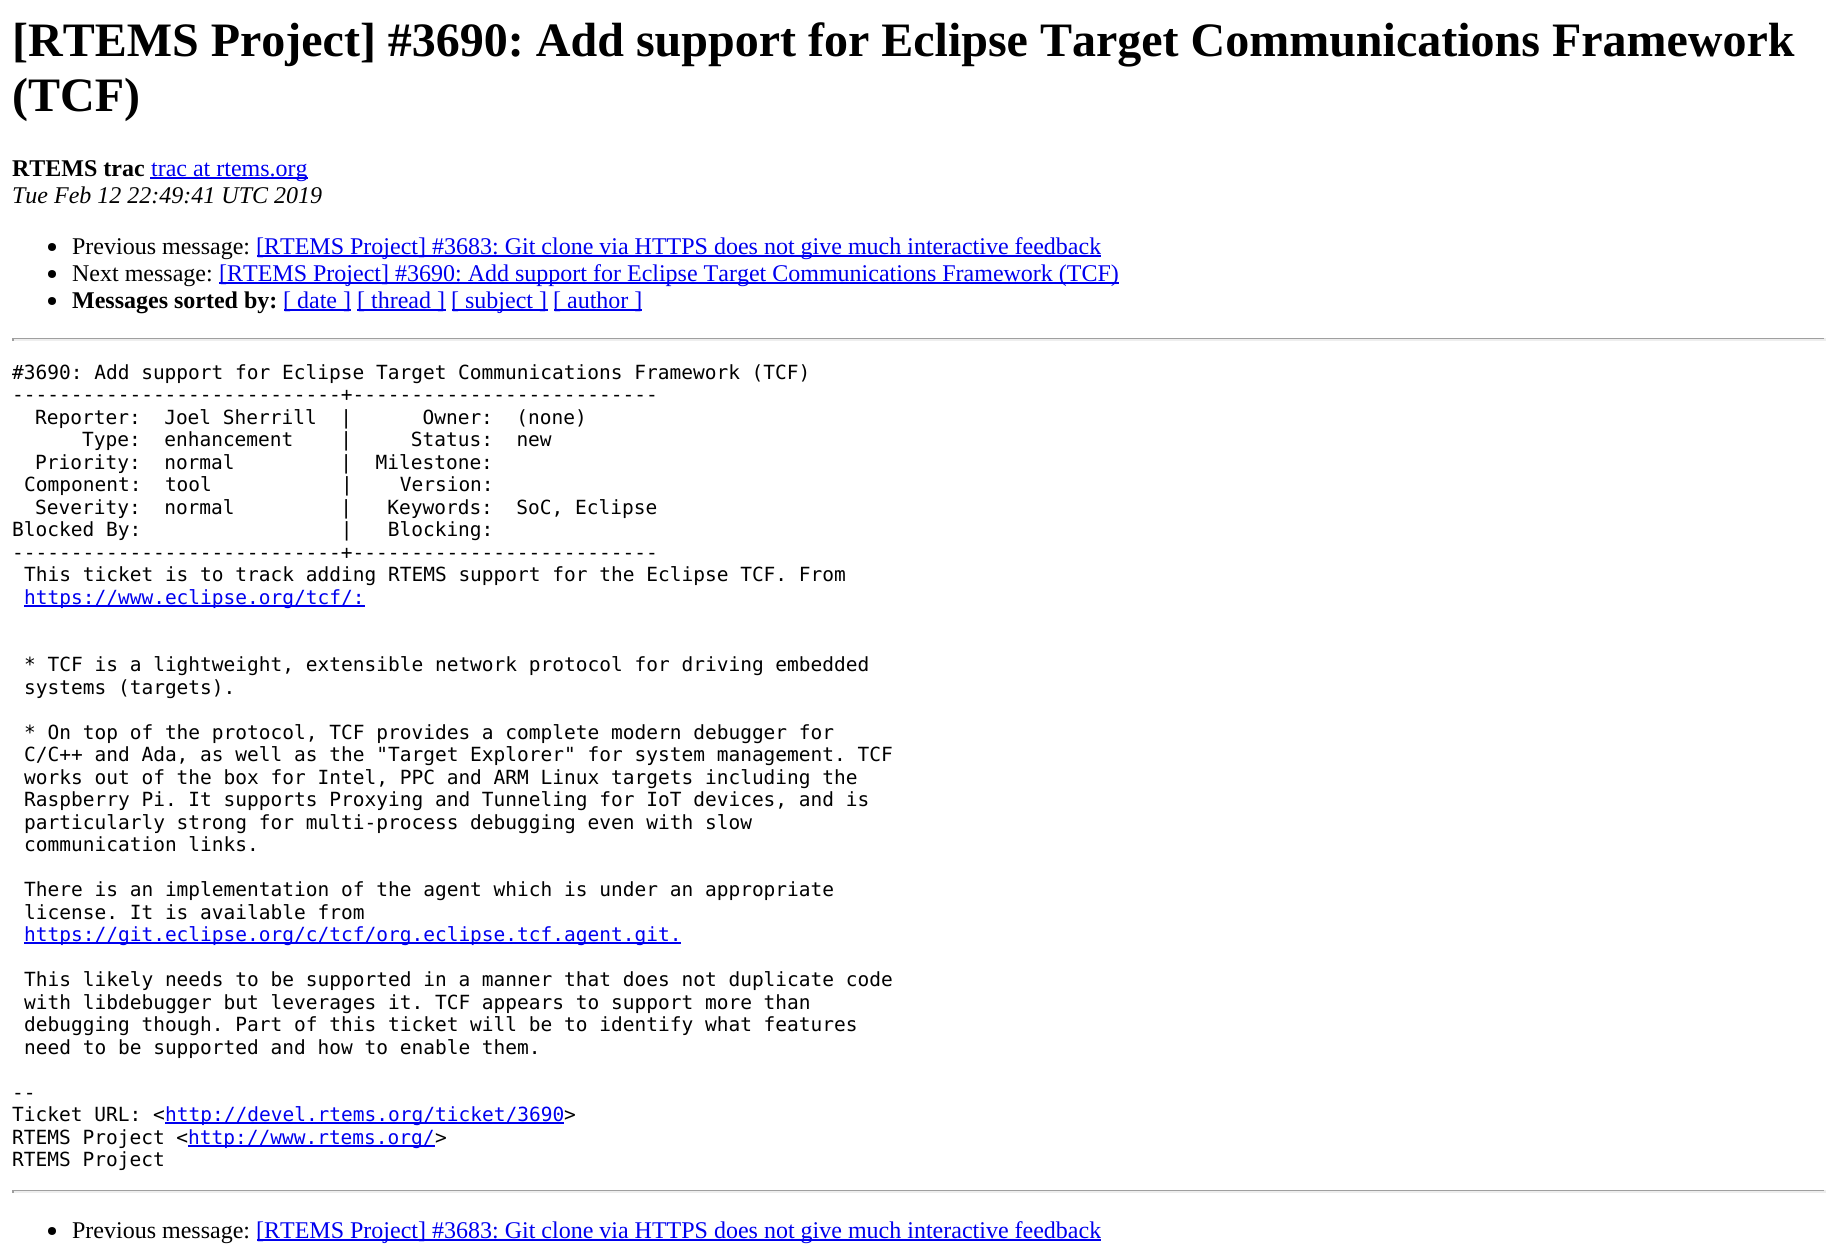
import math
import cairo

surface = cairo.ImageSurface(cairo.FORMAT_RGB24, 1837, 1254)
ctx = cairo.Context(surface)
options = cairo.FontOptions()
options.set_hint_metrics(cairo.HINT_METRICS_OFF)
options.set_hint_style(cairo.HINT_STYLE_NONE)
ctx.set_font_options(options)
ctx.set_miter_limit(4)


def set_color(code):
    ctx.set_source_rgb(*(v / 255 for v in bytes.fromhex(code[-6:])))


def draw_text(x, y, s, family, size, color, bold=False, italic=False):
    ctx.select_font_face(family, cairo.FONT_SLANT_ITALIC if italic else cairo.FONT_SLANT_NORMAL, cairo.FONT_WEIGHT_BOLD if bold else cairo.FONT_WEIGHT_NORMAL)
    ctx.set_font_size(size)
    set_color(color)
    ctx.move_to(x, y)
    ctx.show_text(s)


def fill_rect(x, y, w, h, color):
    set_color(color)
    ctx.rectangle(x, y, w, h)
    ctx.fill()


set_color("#ffffff")
ctx.paint()
draw_text(12, 56, "[RTEMS Project] #3690: Add support for Eclipse Target Communications Framework", "Liberation Serif", 48, "#000000", bold=True)
draw_text(12, 111, "(TCF)", "Liberation Serif", 48, "#000000", bold=True)
draw_text(12, 176, "RTEMS trac", "Liberation Serif", 24, "#000000", bold=True)
fill_rect(150, 177, 158, 2, "#0000ee")
draw_text(151, 176, "trac at rtems.org", "Liberation Serif", 24, "#0000ee")
draw_text(12, 203, "Tue Feb 12 22:49:41 UTC 2019", "Liberation Serif", 24, "#000000", italic=True)
ctx.new_path()
ctx.arc(52, 247, 4, 0, 2 * math.pi)
ctx.fill()
draw_text(72, 254, "Previous message:", "Liberation Serif", 24, "#000000")
fill_rect(257, 255, 844, 2, "#0000ee")
draw_text(256, 254, "[RTEMS Project] #3683: Git clone via HTTPS does not give much interactive feedback", "Liberation Serif", 24, "#0000ee")
set_color("#000000")
ctx.new_path()
ctx.arc(52, 274, 4, 0, 2 * math.pi)
ctx.fill()
draw_text(72, 281, "Next message:", "Liberation Serif", 24, "#000000")
fill_rect(219, 282, 900, 2, "#0000ee")
draw_text(219, 281, "[RTEMS Project] #3690: Add support for Eclipse Target Communications Framework (TCF)", "Liberation Serif", 24, "#0000ee")
set_color("#000000")
ctx.new_path()
ctx.arc(52, 301, 4, 0, 2 * math.pi)
ctx.fill()
draw_text(72, 308, "Messages sorted by:", "Liberation Serif", 24, "#000000", bold=True)
fill_rect(284, 309, 67, 2, "#0000ee")
draw_text(283, 308, "[ date ]", "Liberation Serif", 24, "#0000ee")
fill_rect(357, 309, 89, 2, "#0000ee")
draw_text(357, 308, "[ thread ]", "Liberation Serif", 24, "#0000ee")
fill_rect(452, 309, 96, 2, "#0000ee")
draw_text(451, 308, "[ subject ]", "Liberation Serif", 24, "#0000ee")
fill_rect(554, 309, 88, 2, "#0000ee")
draw_text(553, 308, "[ author ]", "Liberation Serif", 24, "#0000ee")
fill_rect(12, 338, 1814, 1, "#9f9f9f")
fill_rect(1824, 338, 2, 3, "#eeeeee")
fill_rect(12, 339, 1814, 2, "#eeeeee")
fill_rect(12, 338, 2, 3, "#9f9f9f")
draw_text(12, 379, "#3690: Add support for Eclipse Target Communications Framework (TCF)", "DejaVu Sans Mono", 19.5, "#000000")
draw_text(12, 401, "----------------------------+--------------------------", "DejaVu Sans Mono", 19.5, "#000000")
draw_text(35, 424, "Reporter:  Joel Sherrill  |      Owner:  (none)", "DejaVu Sans Mono", 19.5, "#000000")
draw_text(82, 446, "Type:  enhancement    |     Status:  new", "DejaVu Sans Mono", 19.5, "#000000")
draw_text(35, 469, "Priority:  normal         |  Milestone:", "DejaVu Sans Mono", 19.5, "#000000")
draw_text(24, 491, "Component:  tool           |    Version:", "DejaVu Sans Mono", 19.5, "#000000")
draw_text(35, 514, "Severity:  normal         |   Keywords:  SoC, Eclipse", "DejaVu Sans Mono", 19.5, "#000000")
draw_text(12, 536, "Blocked By:                 |   Blocking:", "DejaVu Sans Mono", 19.5, "#000000")
draw_text(12, 559, "----------------------------+--------------------------", "DejaVu Sans Mono", 19.5, "#000000")
draw_text(24, 581, "This ticket is to track adding RTEMS support for the Eclipse TCF. From", "DejaVu Sans Mono", 19.5, "#000000")
fill_rect(24, 605, 341, 2, "#0000ee")
draw_text(24, 604, "https://www.eclipse.org/tcf/:", "DejaVu Sans Mono", 19.5, "#0000ee")
draw_text(24, 671, "* TCF is a lightweight, extensible network protocol for driving embedded", "DejaVu Sans Mono", 19.5, "#000000")
draw_text(24, 694, "systems (targets).", "DejaVu Sans Mono", 19.5, "#000000")
draw_text(24, 739, "* On top of the protocol, TCF provides a complete modern debugger for", "DejaVu Sans Mono", 19.5, "#000000")
draw_text(24, 761, "C/C++ and Ada, as well as the \"Target Explorer\" for system management. TCF", "DejaVu Sans Mono", 19.5, "#000000")
draw_text(24, 784, "works out of the box for Intel, PPC and ARM Linux targets including the", "DejaVu Sans Mono", 19.5, "#000000")
draw_text(24, 806, "Raspberry Pi. It supports Proxying and Tunneling for IoT devices, and is", "DejaVu Sans Mono", 19.5, "#000000")
draw_text(24, 829, "particularly strong for multi-process debugging even with slow", "DejaVu Sans Mono", 19.5, "#000000")
draw_text(24, 851, "communication links.", "DejaVu Sans Mono", 19.5, "#000000")
draw_text(24, 896, "There is an implementation of the agent which is under an appropriate", "DejaVu Sans Mono", 19.5, "#000000")
draw_text(24, 919, "license. It is available from", "DejaVu Sans Mono", 19.5, "#000000")
fill_rect(24, 942, 657, 2, "#0000ee")
draw_text(24, 941, "https://git.eclipse.org/c/tcf/org.eclipse.tcf.agent.git.", "DejaVu Sans Mono", 19.5, "#0000ee")
draw_text(24, 986, "This likely needs to be supported in a manner that does not duplicate code", "DejaVu Sans Mono", 19.5, "#000000")
draw_text(24, 1009, "with libdebugger but leverages it. TCF appears to support more than", "DejaVu Sans Mono", 19.5, "#000000")
draw_text(24, 1031, "debugging though. Part of this ticket will be to identify what features", "DejaVu Sans Mono", 19.5, "#000000")
draw_text(24, 1054, "need to be supported and how to enable them.", "DejaVu Sans Mono", 19.5, "#000000")
draw_text(12, 1099, "--", "DejaVu Sans Mono", 19.5, "#000000")
draw_text(12, 1121, "Ticket URL: <", "DejaVu Sans Mono", 19.5, "#000000")
fill_rect(165, 1122, 399, 2, "#0000ee")
draw_text(165, 1121, "http://devel.rtems.org/ticket/3690", "DejaVu Sans Mono", 19.5, "#0000ee")
draw_text(564, 1121, ">", "DejaVu Sans Mono", 19.5, "#000000")
draw_text(12, 1144, "RTEMS Project <", "DejaVu Sans Mono", 19.5, "#000000")
fill_rect(188, 1145, 247, 2, "#0000ee")
draw_text(188, 1144, "http://www.rtems.org/", "DejaVu Sans Mono", 19.5, "#0000ee")
draw_text(435, 1144, ">", "DejaVu Sans Mono", 19.5, "#000000")
draw_text(12, 1166, "RTEMS Project", "DejaVu Sans Mono", 19.5, "#000000")
fill_rect(12, 1190, 1814, 1, "#9f9f9f")
fill_rect(1824, 1190, 2, 3, "#eeeeee")
fill_rect(12, 1191, 1814, 2, "#eeeeee")
fill_rect(12, 1190, 2, 3, "#9f9f9f")
set_color("#000000")
ctx.new_path()
ctx.arc(52, 1231, 4, 0, 2 * math.pi)
ctx.fill()
draw_text(72, 1238, "Previous message:", "Liberation Serif", 24, "#000000")
fill_rect(257, 1239, 844, 2, "#0000ee")
draw_text(256, 1238, "[RTEMS Project] #3683: Git clone via HTTPS does not give much interactive feedback", "Liberation Serif", 24, "#0000ee")
surface.write_to_png("output.png")
